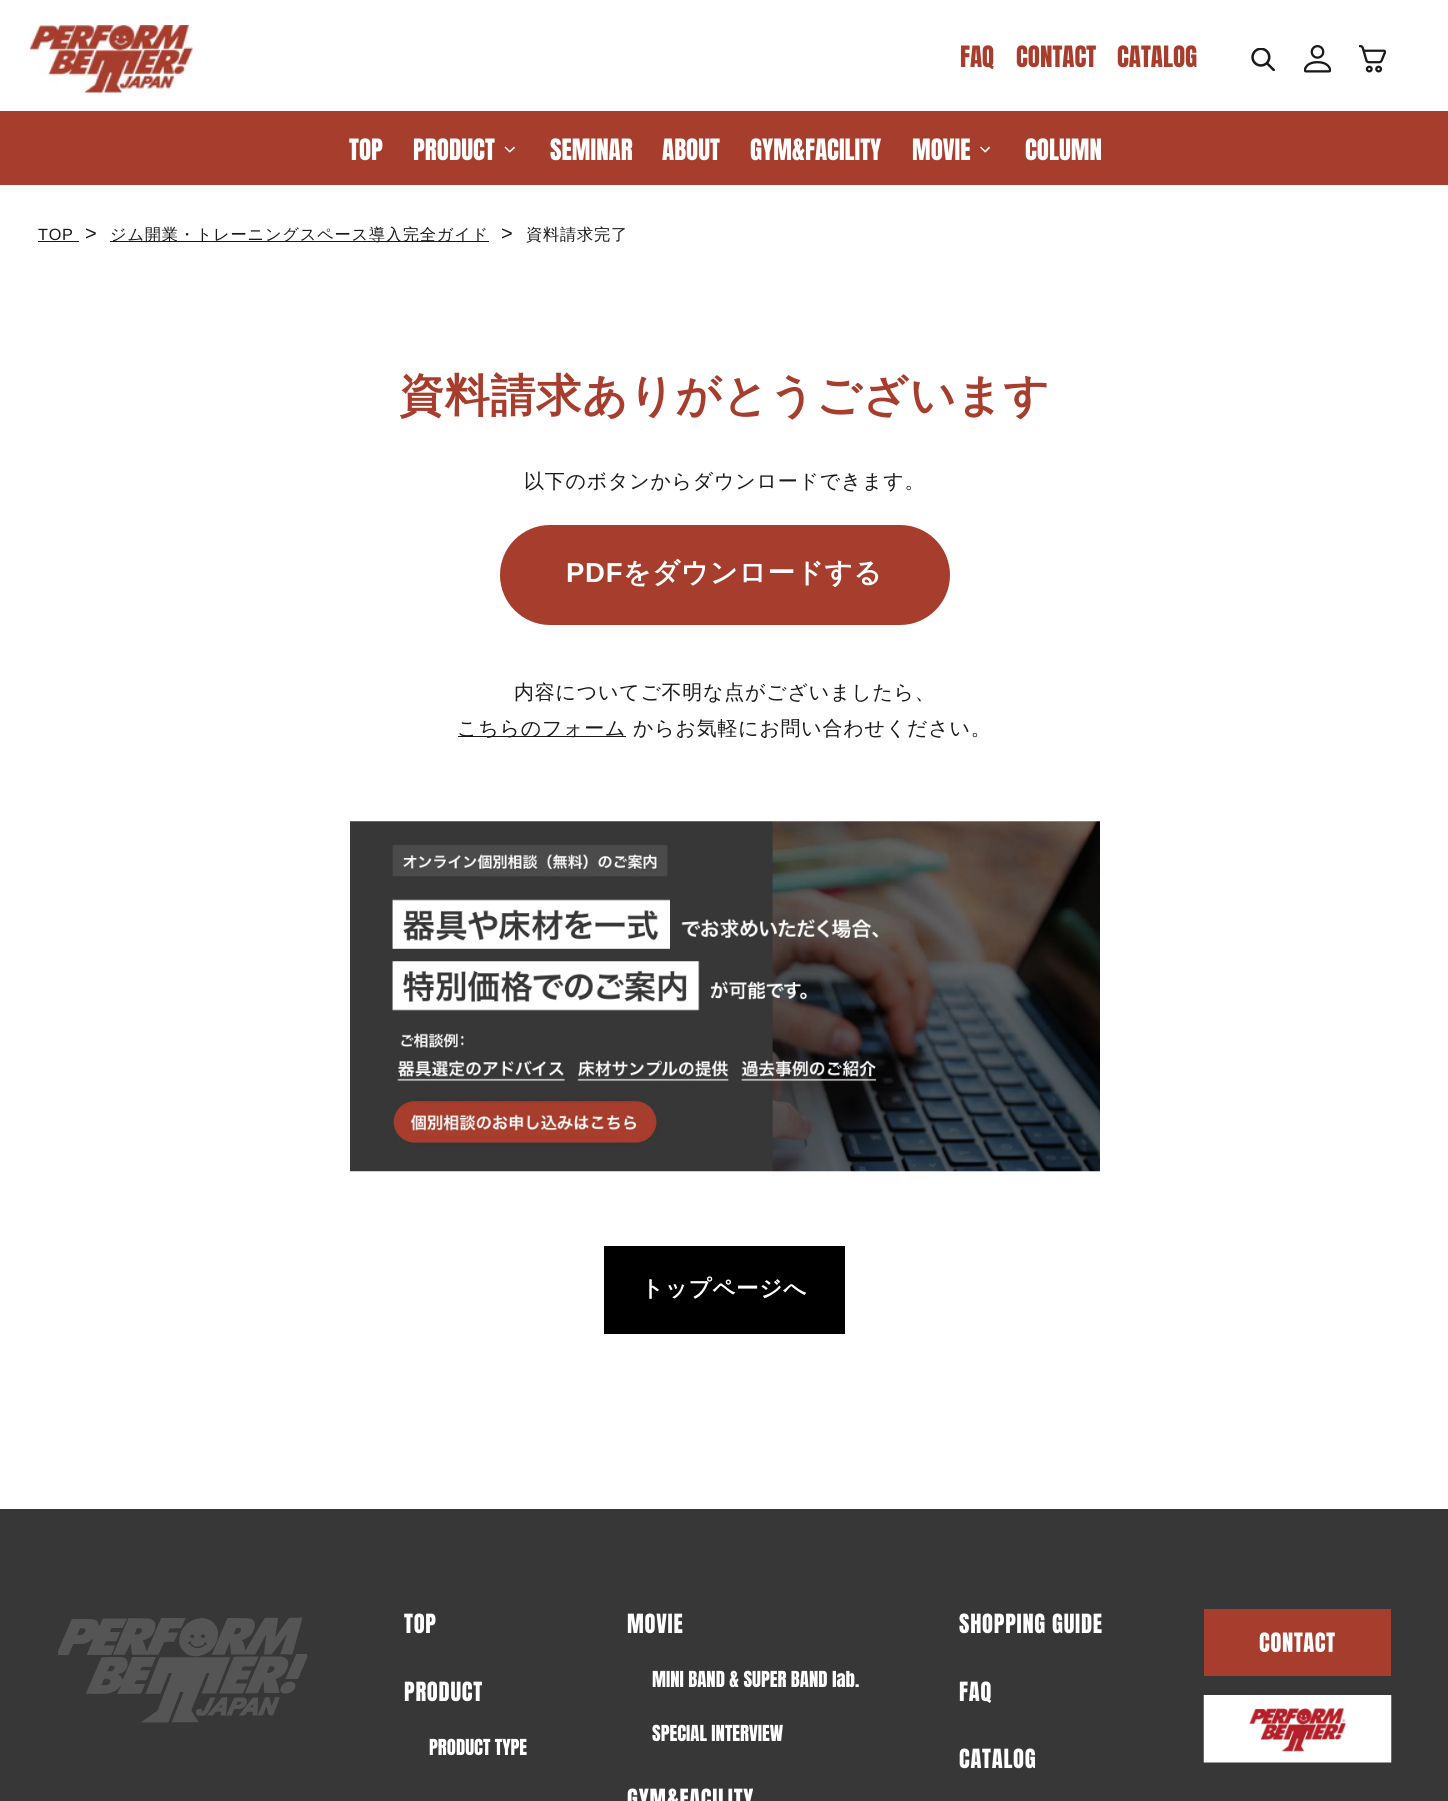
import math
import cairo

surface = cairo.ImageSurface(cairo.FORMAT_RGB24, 1448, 1801)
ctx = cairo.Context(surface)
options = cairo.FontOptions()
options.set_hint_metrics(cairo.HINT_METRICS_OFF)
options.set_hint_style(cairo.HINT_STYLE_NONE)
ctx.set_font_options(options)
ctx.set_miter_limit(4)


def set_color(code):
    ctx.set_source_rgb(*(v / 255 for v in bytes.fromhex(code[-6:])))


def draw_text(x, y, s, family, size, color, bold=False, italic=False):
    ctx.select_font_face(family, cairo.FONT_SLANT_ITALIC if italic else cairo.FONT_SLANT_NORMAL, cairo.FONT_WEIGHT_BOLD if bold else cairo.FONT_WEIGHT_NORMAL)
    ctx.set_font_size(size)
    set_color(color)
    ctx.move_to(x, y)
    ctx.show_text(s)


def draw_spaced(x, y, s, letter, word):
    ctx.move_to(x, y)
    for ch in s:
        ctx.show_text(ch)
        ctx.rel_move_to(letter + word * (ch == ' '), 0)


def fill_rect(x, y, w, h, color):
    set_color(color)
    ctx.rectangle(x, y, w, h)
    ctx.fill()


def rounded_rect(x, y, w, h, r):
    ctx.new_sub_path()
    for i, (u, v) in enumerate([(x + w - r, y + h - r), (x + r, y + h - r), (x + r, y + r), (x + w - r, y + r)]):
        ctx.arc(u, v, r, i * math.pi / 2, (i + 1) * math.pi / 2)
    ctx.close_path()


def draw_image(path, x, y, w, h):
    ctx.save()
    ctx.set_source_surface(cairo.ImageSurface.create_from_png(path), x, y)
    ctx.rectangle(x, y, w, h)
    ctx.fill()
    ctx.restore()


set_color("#ffffff")
ctx.paint()
draw_image("assets/img1.png", 30, 25, 163, 68)
draw_text(960, 67, "FAQ", "Anton", 25, "#a73d2c")
draw_text(1016, 67, "CONTACT", "Anton", 25, "#a73d2c")
draw_text(1117, 67, "CATALOG", "Anton", 25, "#a73d2c")
draw_image("assets/img2.png", 1251, 48, 24, 23)
draw_image("assets/img3.png", 1304, 45, 27, 28)
draw_image("assets/img4.png", 1359, 45, 27, 28)
fill_rect(0, 111, 1448, 74, "#a73d2c")
draw_text(349, 160, "TOP", "Anton", 25, "#ffffff")
draw_text(413, 160, "PRODUCT", "Anton", 25, "#ffffff")
ctx.new_path()
ctx.move_to(514, 146.5)
ctx.line_to(515, 148)
ctx.line_to(510, 152.5)
ctx.line_to(509, 151.5)
ctx.close_path()
ctx.fill()
ctx.new_path()
ctx.move_to(505.5, 146.5)
ctx.line_to(510.5, 151.5)
ctx.line_to(509.5, 152.5)
ctx.line_to(504.5, 147.5)
ctx.close_path()
ctx.fill()
draw_text(550, 160, "SEMINAR", "Anton", 25, "#ffffff")
draw_text(662, 160, "ABOUT", "Anton", 25, "#ffffff")
draw_text(750, 160, "GYM&FACILITY", "Anton", 25, "#ffffff")
draw_text(912, 160, "MOVIE", "Anton", 25, "#ffffff")
ctx.new_path()
ctx.move_to(989, 146.5)
ctx.line_to(990, 148)
ctx.line_to(985.5, 152.5)
ctx.line_to(984.5, 151.5)
ctx.close_path()
ctx.fill()
ctx.new_path()
ctx.move_to(981, 146.5)
ctx.line_to(986, 151.5)
ctx.line_to(985, 152.5)
ctx.line_to(980, 147.5)
ctx.close_path()
ctx.fill()
draw_text(1025, 160, "COLUMN", "Anton", 25, "#ffffff")
ctx.select_font_face("Liberation Sans")
ctx.set_font_size(16.25)
set_color("#1a1a1a")
draw_spaced(38, 240, "TOP", 0.75, 0)
fill_rect(38, 241, 41, 1, "#1a1a1a")
ctx.set_font_size(20)
draw_spaced(85, 240, ">", 0.75, 0)
fill_rect(110, 241, 379, 1, "#1a1a1a")
ctx.select_font_face("WenQuanYi Zen Hei Medium")
ctx.set_font_size(16.25)
draw_spaced(110, 240, "ジム開業・トレーニングスペース導入完全ガイド", 0.75, 0)
ctx.select_font_face("Liberation Sans")
ctx.set_font_size(20)
draw_spaced(501, 240, ">", 0.75, 0)
ctx.select_font_face("WenQuanYi Zen Hei Medium")
ctx.set_font_size(16.25)
draw_spaced(526, 240, "資料請求完了", 0.75, 0)
ctx.select_font_face("WenQuanYi Zen Hei", cairo.FONT_SLANT_NORMAL, cairo.FONT_WEIGHT_BOLD)
ctx.set_font_size(45)
set_color("#a73d2c")
draw_spaced(399, 411, "資料請求ありがとうございます", 0.75, 0)
ctx.select_font_face("WenQuanYi Zen Hei Medium")
ctx.set_font_size(20)
set_color("#1a1a1a")
draw_spaced(524, 488, "以下のボタンからダウンロードできます。", 0.75, 0)
set_color("#a73d2c")
rounded_rect(500, 525, 450, 100, 50)
ctx.fill()
ctx.select_font_face("Liberation Sans", cairo.FONT_SLANT_NORMAL, cairo.FONT_WEIGHT_BOLD)
ctx.set_font_size(27.5)
set_color("#ffffff")
draw_spaced(566, 582, "PDF", 0.75, 0)
ctx.select_font_face("WenQuanYi Zen Hei", cairo.FONT_SLANT_NORMAL, cairo.FONT_WEIGHT_BOLD)
draw_spaced(623, 582, "をダウンロードする", 0.75, 0)
ctx.select_font_face("WenQuanYi Zen Hei Medium")
ctx.set_font_size(20)
set_color("#1a1a1a")
draw_spaced(514, 699, "内容についてご不明な点がございましたら、", 0.75, 0)
fill_rect(458, 736, 168, 1, "#1a1a1a")
draw_spaced(457, 735, "こちらのフォーム", 0.75, 0)
draw_spaced(633, 735, "からお気軽にお問い合わせください。", 0.75, 0)
draw_image("assets/img5.png", 350, 821, 750, 351)
fill_rect(604, 1246, 241, 88, "#000000")
ctx.select_font_face("WenQuanYi Zen Hei", cairo.FONT_SLANT_NORMAL, cairo.FONT_WEIGHT_BOLD)
ctx.set_font_size(22.5)
set_color("#ffffff")
draw_spaced(641, 1296, "トップページへ", 0.75, 0)
fill_rect(0, 1509, 1448, 292, "#373737")
draw_image("assets/img6.png", 58, 1617, 250, 106)
ctx.select_font_face("Anton")
set_color("#ffffff")
draw_spaced(404, 1633, "TOP", 0.75, 0)
draw_spaced(404, 1701, "PRODUCT", 0.75, 0)
draw_text(429, 1755, "PRODUCT TYPE", "Anton", 18.75, "#ffffff")
ctx.set_font_size(22.5)
draw_spaced(627, 1633, "MOVIE", 0.75, 0)
draw_text(652, 1687, "MINI BAND & SUPER BAND lab.", "Anton", 18.75, "#ffffff")
draw_text(652, 1741, "SPECIAL INTERVIEW", "Anton", 18.75, "#ffffff")
ctx.set_font_size(22.5)
draw_spaced(627, 1808, "GYM&FACILITY", 0.75, 0)
draw_spaced(959, 1633, "SHOPPING GUIDE", 0.75, 0)
draw_spaced(959, 1701, "FAQ", 0.75, 0)
draw_spaced(959, 1768, "CATALOG", 0.75, 0)
draw_image("assets/img7.png", 1204, 1609, 187, 67)
draw_image("assets/img8.png", 1203, 1695, 189, 68)
surface.write_to_png("output.png")
